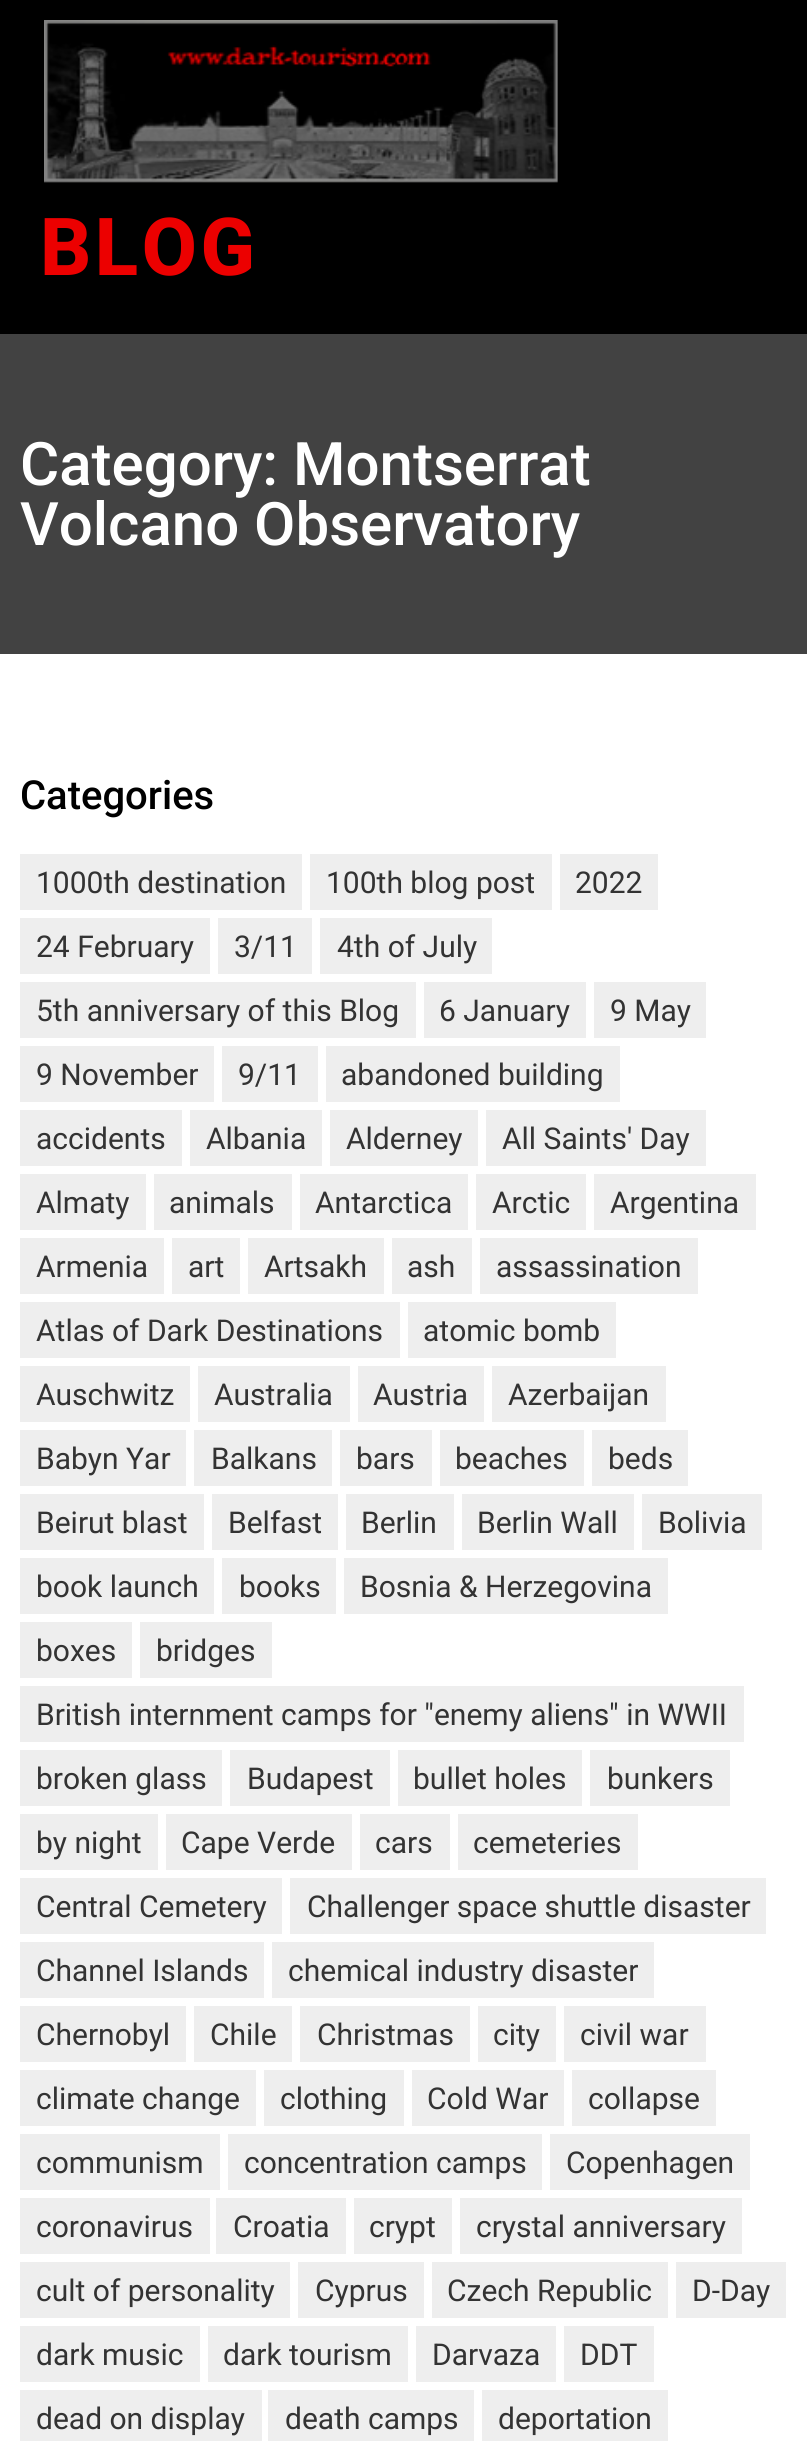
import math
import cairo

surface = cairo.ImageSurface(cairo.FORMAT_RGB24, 807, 2441)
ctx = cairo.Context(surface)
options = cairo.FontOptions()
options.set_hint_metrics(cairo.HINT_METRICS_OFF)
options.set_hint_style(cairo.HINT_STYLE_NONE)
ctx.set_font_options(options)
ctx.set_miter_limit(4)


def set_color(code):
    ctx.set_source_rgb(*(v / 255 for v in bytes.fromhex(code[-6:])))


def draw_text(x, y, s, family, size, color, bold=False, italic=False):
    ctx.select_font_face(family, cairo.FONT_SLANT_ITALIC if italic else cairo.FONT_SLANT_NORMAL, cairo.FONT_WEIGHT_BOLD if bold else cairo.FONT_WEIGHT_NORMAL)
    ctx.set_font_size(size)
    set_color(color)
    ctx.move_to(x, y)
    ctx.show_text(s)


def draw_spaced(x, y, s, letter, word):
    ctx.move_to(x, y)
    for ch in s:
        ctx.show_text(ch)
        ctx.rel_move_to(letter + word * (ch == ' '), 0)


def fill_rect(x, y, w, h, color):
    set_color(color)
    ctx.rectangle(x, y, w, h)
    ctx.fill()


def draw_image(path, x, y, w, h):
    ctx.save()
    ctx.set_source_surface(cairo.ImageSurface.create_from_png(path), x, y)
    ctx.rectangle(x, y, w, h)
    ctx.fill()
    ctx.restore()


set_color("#ffffff")
ctx.paint()
fill_rect(0, 0, 807, 334, "#000000")
draw_image("assets/img1.png", 44, 20, 514, 163)
ctx.select_font_face("Roboto ExtraBold")
ctx.set_font_size(80)
set_color("#ec0000")
draw_spaced(40, 275, "BLOG", 3.5, 0)
fill_rect(0, 334, 807, 320, "#424242")
draw_text(20, 485, "Category: Montserrat", "Roboto Medium", 60, "#ffffff")
draw_text(20, 545, "Volcano Observatory", "Roboto Medium", 60, "#ffffff")
draw_text(20, 809, "Categories", "Roboto Medium", 40, "#000000")
fill_rect(20, 854, 282, 56, "#eeeeee")
draw_text(36, 893, "1000th destination", "Roboto", 30, "#333333")
fill_rect(310, 854, 242, 56, "#eeeeee")
draw_text(326, 893, "100th blog post", "Roboto", 30, "#333333")
fill_rect(560, 854, 98, 56, "#eeeeee")
draw_text(575, 893, "2022", "Roboto", 30, "#333333")
fill_rect(20, 918, 190, 56, "#eeeeee")
draw_text(36, 957, "24 February", "Roboto", 30, "#333333")
fill_rect(218, 918, 94, 56, "#eeeeee")
draw_text(234, 957, "3/11", "Roboto", 30, "#333333")
fill_rect(320, 918, 172, 56, "#eeeeee")
draw_text(337, 957, "4th of July", "Roboto", 30, "#333333")
fill_rect(20, 982, 396, 56, "#eeeeee")
draw_text(36, 1021, "5th anniversary of this Blog", "Roboto", 30, "#333333")
fill_rect(424, 982, 162, 56, "#eeeeee")
draw_text(439, 1021, "6 January", "Roboto", 30, "#333333")
fill_rect(594, 982, 112, 56, "#eeeeee")
draw_text(610, 1021, "9 May", "Roboto", 30, "#333333")
fill_rect(20, 1046, 194, 56, "#eeeeee")
draw_text(36, 1085, "9 November", "Roboto", 30, "#333333")
fill_rect(222, 1046, 96, 56, "#eeeeee")
draw_text(238, 1085, "9/11", "Roboto", 30, "#333333")
fill_rect(326, 1046, 294, 56, "#eeeeee")
draw_text(341, 1085, "abandoned building", "Roboto", 30, "#333333")
fill_rect(20, 1110, 162, 56, "#eeeeee")
draw_text(36, 1149, "accidents", "Roboto", 30, "#333333")
fill_rect(190, 1110, 132, 56, "#eeeeee")
draw_text(206, 1149, "Albania", "Roboto", 30, "#333333")
fill_rect(330, 1110, 148, 56, "#eeeeee")
draw_text(346, 1149, "Alderney", "Roboto", 30, "#333333")
fill_rect(486, 1110, 220, 56, "#eeeeee")
draw_text(502, 1149, "All Saints' Day", "Roboto", 30, "#333333")
fill_rect(20, 1174, 126, 56, "#eeeeee")
draw_text(36, 1213, "Almaty", "Roboto", 30, "#333333")
fill_rect(154, 1174, 138, 56, "#eeeeee")
draw_text(169, 1213, "animals", "Roboto", 30, "#333333")
fill_rect(300, 1174, 168, 56, "#eeeeee")
draw_text(315, 1213, "Antarctica", "Roboto", 30, "#333333")
fill_rect(476, 1174, 110, 56, "#eeeeee")
draw_text(492, 1213, "Arctic", "Roboto", 30, "#333333")
fill_rect(594, 1174, 162, 56, "#eeeeee")
draw_text(610, 1213, "Argentina", "Roboto", 30, "#333333")
fill_rect(20, 1238, 144, 56, "#eeeeee")
draw_text(36, 1277, "Armenia", "Roboto", 30, "#333333")
fill_rect(172, 1238, 68, 56, "#eeeeee")
draw_text(188, 1277, "art", "Roboto", 30, "#333333")
fill_rect(248, 1238, 136, 56, "#eeeeee")
draw_text(264, 1277, "Artsakh", "Roboto", 30, "#333333")
fill_rect(392, 1238, 80, 56, "#eeeeee")
draw_text(407, 1277, "ash", "Roboto", 30, "#333333")
fill_rect(480, 1238, 218, 56, "#eeeeee")
draw_text(496, 1277, "assassination", "Roboto", 30, "#333333")
fill_rect(20, 1302, 380, 56, "#eeeeee")
draw_text(36, 1341, "Atlas of Dark Destinations", "Roboto", 30, "#333333")
fill_rect(408, 1302, 208, 56, "#eeeeee")
draw_text(423, 1341, "atomic bomb", "Roboto", 30, "#333333")
fill_rect(20, 1366, 170, 56, "#eeeeee")
draw_text(36, 1405, "Auschwitz", "Roboto", 30, "#333333")
fill_rect(198, 1366, 152, 56, "#eeeeee")
draw_text(214, 1405, "Australia", "Roboto", 30, "#333333")
fill_rect(358, 1366, 126, 56, "#eeeeee")
draw_text(373, 1405, "Austria", "Roboto", 30, "#333333")
fill_rect(492, 1366, 174, 56, "#eeeeee")
draw_text(508, 1405, "Azerbaijan", "Roboto", 30, "#333333")
fill_rect(20, 1430, 166, 56, "#eeeeee")
draw_text(36, 1469, "Babyn Yar", "Roboto", 30, "#333333")
fill_rect(194, 1430, 138, 56, "#eeeeee")
draw_text(211, 1469, "Balkans", "Roboto", 30, "#333333")
fill_rect(340, 1430, 92, 56, "#eeeeee")
draw_text(356, 1469, "bars", "Roboto", 30, "#333333")
fill_rect(440, 1430, 144, 56, "#eeeeee")
draw_text(455, 1469, "beaches", "Roboto", 30, "#333333")
fill_rect(592, 1430, 96, 56, "#eeeeee")
draw_text(608, 1469, "beds", "Roboto", 30, "#333333")
fill_rect(20, 1494, 184, 56, "#eeeeee")
draw_text(36, 1533, "Beirut blast", "Roboto", 30, "#333333")
fill_rect(212, 1494, 126, 56, "#eeeeee")
draw_text(228, 1533, "Belfast", "Roboto", 30, "#333333")
fill_rect(346, 1494, 108, 56, "#eeeeee")
draw_text(361, 1533, "Berlin", "Roboto", 30, "#333333")
fill_rect(462, 1494, 172, 56, "#eeeeee")
draw_text(477, 1533, "Berlin Wall", "Roboto", 30, "#333333")
fill_rect(642, 1494, 120, 56, "#eeeeee")
draw_text(658, 1533, "Bolivia", "Roboto", 30, "#333333")
fill_rect(20, 1558, 194, 56, "#eeeeee")
draw_text(36, 1597, "book launch", "Roboto", 30, "#333333")
fill_rect(222, 1558, 114, 56, "#eeeeee")
draw_text(239, 1597, "books", "Roboto", 30, "#333333")
fill_rect(344, 1558, 324, 56, "#eeeeee")
draw_text(360, 1597, "Bosnia & Herzegovina", "Roboto", 30, "#333333")
fill_rect(20, 1622, 112, 56, "#eeeeee")
draw_text(36, 1661, "boxes", "Roboto", 30, "#333333")
fill_rect(140, 1622, 132, 56, "#eeeeee")
draw_text(156, 1661, "bridges", "Roboto", 30, "#333333")
fill_rect(20, 1686, 724, 56, "#eeeeee")
draw_text(36, 1725, "British internment camps for \"enemy aliens\" in WWII", "Roboto", 30, "#333333")
fill_rect(20, 1750, 202, 56, "#eeeeee")
draw_text(36, 1789, "broken glass", "Roboto", 30, "#333333")
fill_rect(230, 1750, 160, 56, "#eeeeee")
draw_text(247, 1789, "Budapest", "Roboto", 30, "#333333")
fill_rect(398, 1750, 184, 56, "#eeeeee")
draw_text(413, 1789, "bullet holes", "Roboto", 30, "#333333")
fill_rect(590, 1750, 140, 56, "#eeeeee")
draw_text(607, 1789, "bunkers", "Roboto", 30, "#333333")
fill_rect(20, 1814, 138, 56, "#eeeeee")
draw_text(36, 1853, "by night", "Roboto", 30, "#333333")
fill_rect(166, 1814, 186, 56, "#eeeeee")
draw_text(181, 1853, "Cape Verde", "Roboto", 30, "#333333")
fill_rect(360, 1814, 90, 56, "#eeeeee")
draw_text(375, 1853, "cars", "Roboto", 30, "#333333")
fill_rect(458, 1814, 180, 56, "#eeeeee")
draw_text(473, 1853, "cemeteries", "Roboto", 30, "#333333")
fill_rect(20, 1878, 262, 56, "#eeeeee")
draw_text(36, 1917, "Central Cemetery", "Roboto", 30, "#333333")
fill_rect(290, 1878, 476, 56, "#eeeeee")
draw_text(307, 1917, "Challenger space shuttle disaster", "Roboto", 30, "#333333")
fill_rect(20, 1942, 244, 56, "#eeeeee")
draw_text(36, 1981, "Channel Islands", "Roboto", 30, "#333333")
fill_rect(272, 1942, 382, 56, "#eeeeee")
draw_text(288, 1981, "chemical industry disaster", "Roboto", 30, "#333333")
fill_rect(20, 2006, 166, 56, "#eeeeee")
draw_text(36, 2045, "Chernobyl", "Roboto", 30, "#333333")
fill_rect(194, 2006, 98, 56, "#eeeeee")
draw_text(210, 2045, "Chile", "Roboto", 30, "#333333")
fill_rect(300, 2006, 170, 56, "#eeeeee")
draw_text(317, 2045, "Christmas", "Roboto", 30, "#333333")
fill_rect(478, 2006, 78, 56, "#eeeeee")
draw_text(493, 2045, "city", "Roboto", 30, "#333333")
fill_rect(564, 2006, 142, 56, "#eeeeee")
draw_text(580, 2045, "civil war", "Roboto", 30, "#333333")
fill_rect(20, 2070, 236, 56, "#eeeeee")
draw_text(36, 2109, "climate change", "Roboto", 30, "#333333")
fill_rect(264, 2070, 140, 56, "#eeeeee")
draw_text(280, 2109, "clothing", "Roboto", 30, "#333333")
fill_rect(412, 2070, 152, 56, "#eeeeee")
draw_text(427, 2109, "Cold War", "Roboto", 30, "#333333")
fill_rect(572, 2070, 144, 56, "#eeeeee")
draw_text(588, 2109, "collapse", "Roboto", 30, "#333333")
fill_rect(20, 2134, 200, 56, "#eeeeee")
draw_text(36, 2173, "communism", "Roboto", 30, "#333333")
fill_rect(228, 2134, 314, 56, "#eeeeee")
draw_text(244, 2173, "concentration camps", "Roboto", 30, "#333333")
fill_rect(550, 2134, 200, 56, "#eeeeee")
draw_text(566, 2173, "Copenhagen", "Roboto", 30, "#333333")
fill_rect(20, 2198, 190, 56, "#eeeeee")
draw_text(36, 2237, "coronavirus", "Roboto", 30, "#333333")
fill_rect(216, 2198, 130, 56, "#eeeeee")
draw_text(233, 2237, "Croatia", "Roboto", 30, "#333333")
fill_rect(354, 2198, 98, 56, "#eeeeee")
draw_text(369, 2237, "crypt", "Roboto", 30, "#333333")
fill_rect(460, 2198, 282, 56, "#eeeeee")
draw_text(476, 2237, "crystal anniversary", "Roboto", 30, "#333333")
fill_rect(20, 2262, 270, 56, "#eeeeee")
draw_text(36, 2301, "cult of personality", "Roboto", 30, "#333333")
fill_rect(298, 2262, 126, 56, "#eeeeee")
draw_text(315, 2301, "Cyprus", "Roboto", 30, "#333333")
fill_rect(432, 2262, 236, 56, "#eeeeee")
draw_text(447, 2301, "Czech Republic", "Roboto", 30, "#333333")
fill_rect(676, 2262, 110, 56, "#eeeeee")
draw_text(692, 2301, "D-Day", "Roboto", 30, "#333333")
fill_rect(20, 2326, 180, 56, "#eeeeee")
draw_text(36, 2365, "dark music", "Roboto", 30, "#333333")
fill_rect(208, 2326, 200, 56, "#eeeeee")
draw_text(223, 2365, "dark tourism", "Roboto", 30, "#333333")
fill_rect(416, 2326, 140, 56, "#eeeeee")
draw_text(432, 2365, "Darvaza", "Roboto", 30, "#333333")
fill_rect(564, 2326, 90, 56, "#eeeeee")
draw_text(580, 2365, "DDT", "Roboto", 30, "#333333")
fill_rect(20, 2390, 242, 51, "#eeeeee")
draw_text(36, 2429, "dead on display", "Roboto", 30, "#333333")
fill_rect(268, 2390, 206, 51, "#eeeeee")
draw_text(285, 2429, "death camps", "Roboto", 30, "#333333")
fill_rect(482, 2390, 186, 51, "#eeeeee")
draw_text(498, 2429, "deportation", "Roboto", 30, "#333333")
surface.write_to_png("output.png")
